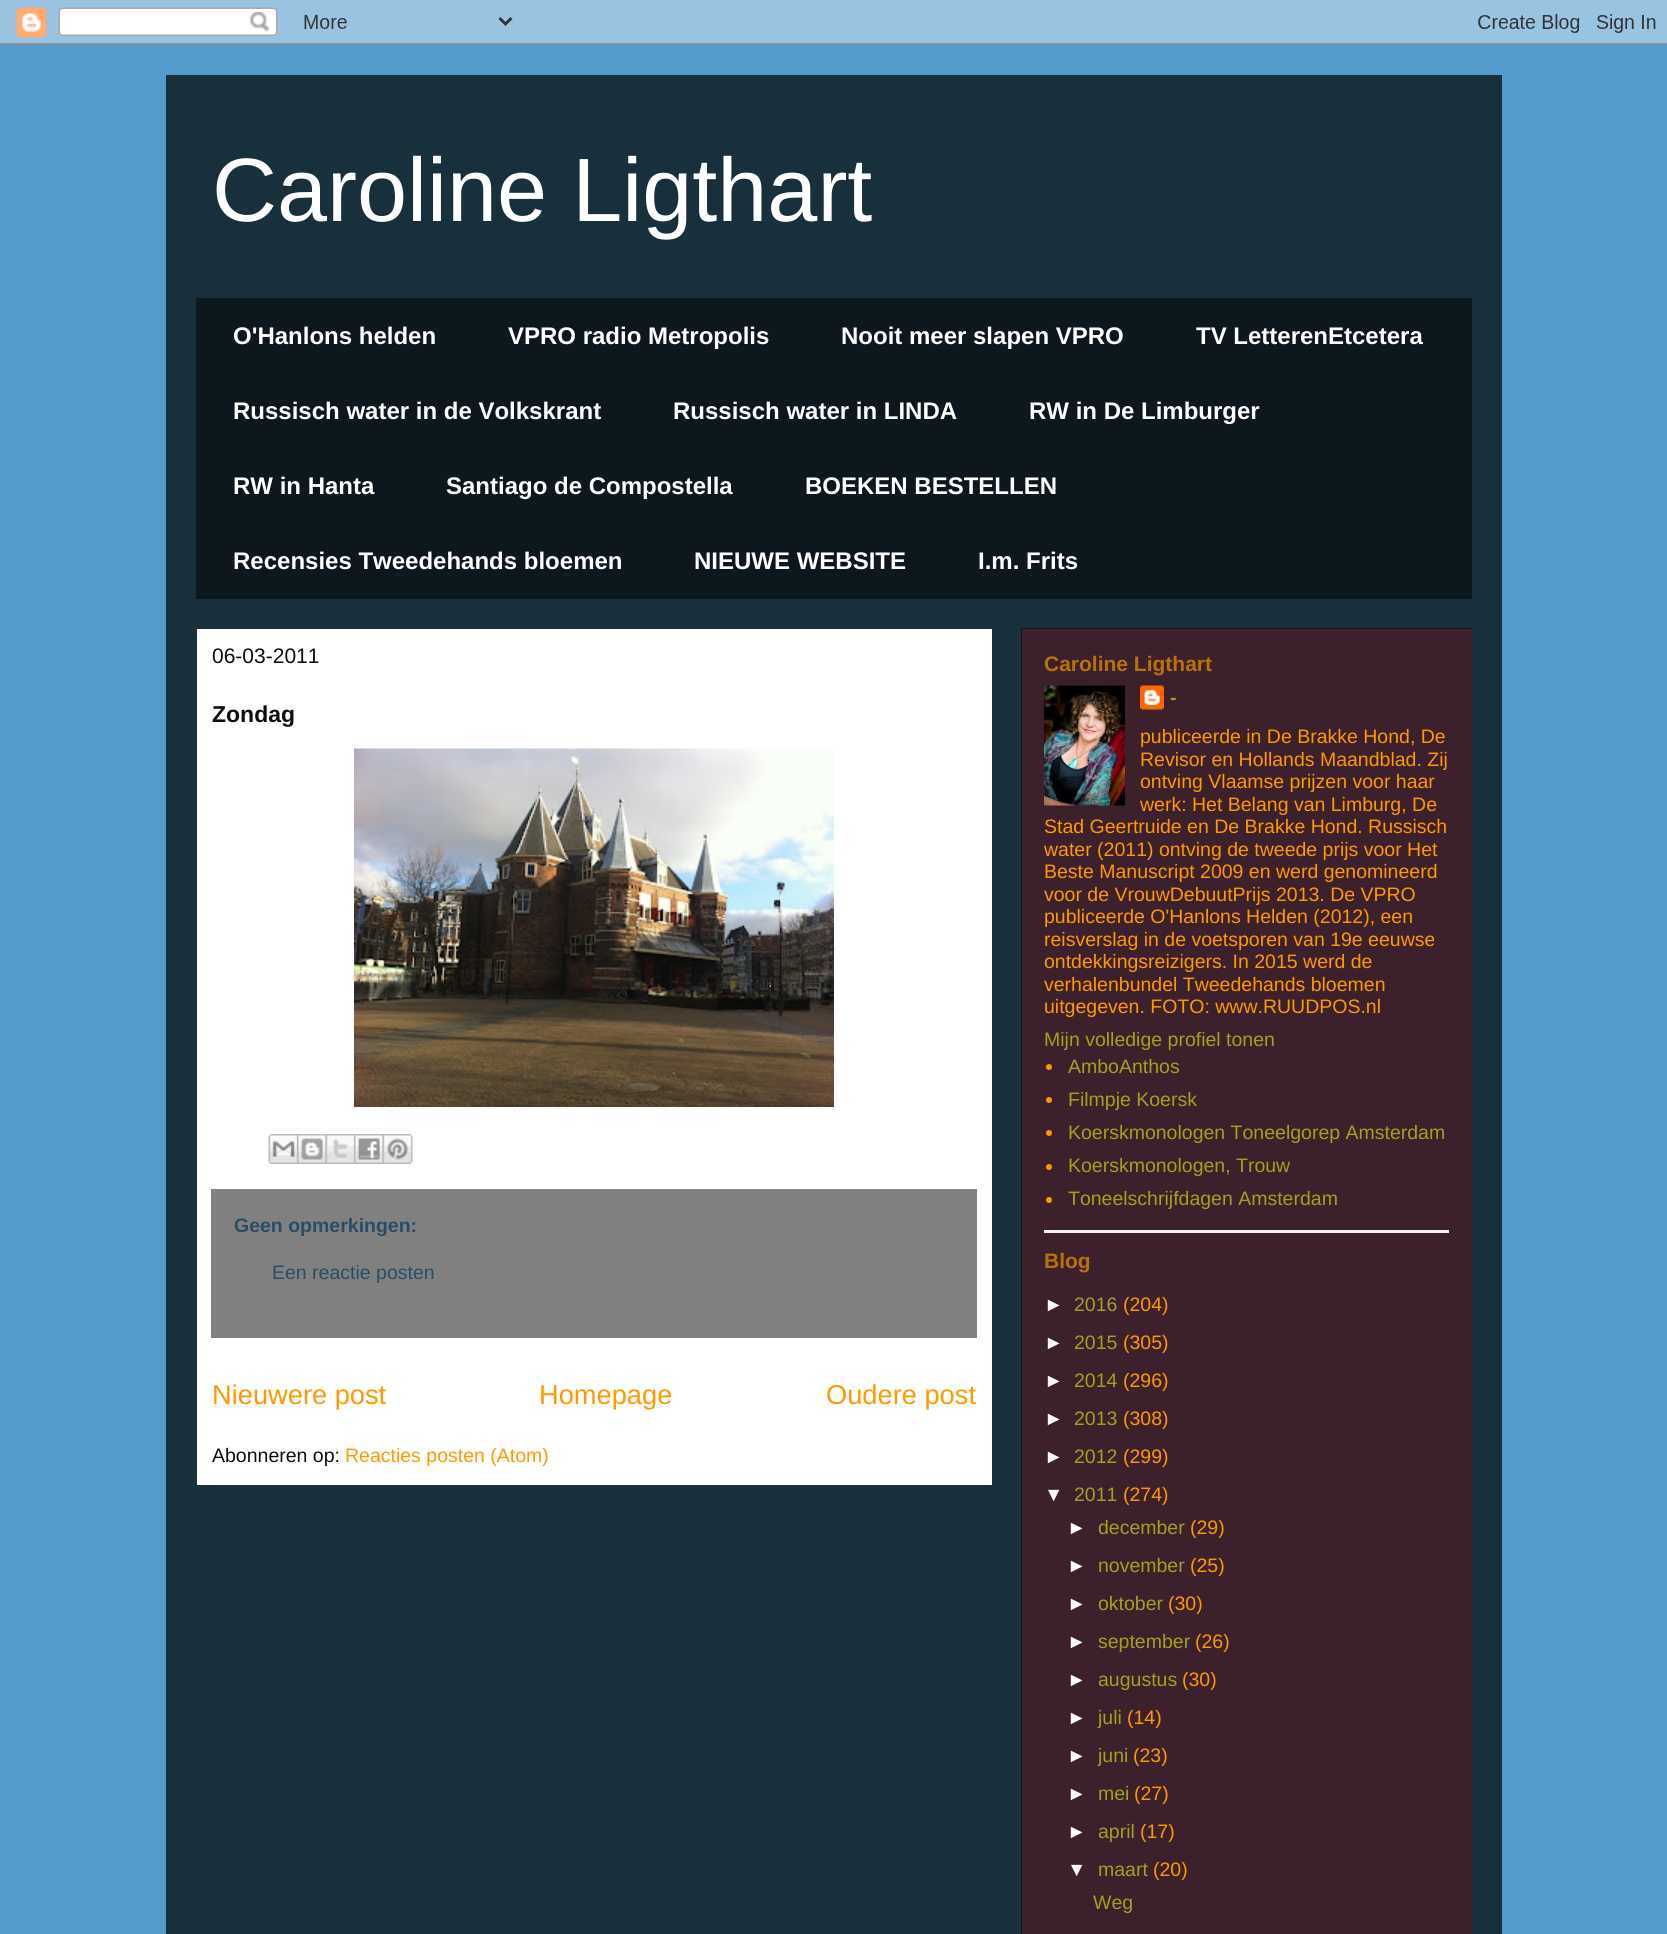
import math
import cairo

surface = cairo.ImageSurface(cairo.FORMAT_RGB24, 1667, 1934)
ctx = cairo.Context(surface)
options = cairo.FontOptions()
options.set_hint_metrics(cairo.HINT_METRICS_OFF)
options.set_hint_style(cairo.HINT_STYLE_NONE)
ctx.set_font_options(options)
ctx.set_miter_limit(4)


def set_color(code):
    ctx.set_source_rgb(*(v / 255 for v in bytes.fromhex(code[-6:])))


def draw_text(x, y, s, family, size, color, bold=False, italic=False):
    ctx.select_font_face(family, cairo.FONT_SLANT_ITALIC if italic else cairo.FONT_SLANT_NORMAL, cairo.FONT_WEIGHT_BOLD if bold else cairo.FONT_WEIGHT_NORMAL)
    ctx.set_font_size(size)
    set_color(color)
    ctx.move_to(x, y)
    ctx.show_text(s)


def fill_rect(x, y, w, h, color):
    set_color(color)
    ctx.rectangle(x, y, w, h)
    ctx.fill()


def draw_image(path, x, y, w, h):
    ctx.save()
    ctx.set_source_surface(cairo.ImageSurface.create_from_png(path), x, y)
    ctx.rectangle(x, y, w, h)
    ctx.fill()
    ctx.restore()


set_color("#539bcd")
ctx.paint()
draw_image("assets/img1.png", 0, 0, 1667, 45)
fill_rect(166, 75, 1336, 1859, "#182f3c")
fill_rect(1021, 628, 451, 1306, "#0c181e")
draw_text(212, 221, "Caroline Ligthart", "Liberation Sans", 90, "#ffffff")
fill_rect(196, 298, 1276, 301, "#0c181e")
draw_text(233, 344, "O'Hanlons helden", "Liberation Sans", 24, "#ffffff", bold=True)
draw_text(508, 344, "VPRO radio Metropolis", "Liberation Sans", 24, "#ffffff", bold=True)
draw_text(841, 344, "Nooit meer slapen VPRO", "Liberation Sans", 24, "#ffffff", bold=True)
draw_text(1196, 344, "TV LetterenEtcetera", "Liberation Sans", 24, "#ffffff", bold=True)
draw_text(233, 419, "Russisch water in de Volkskrant", "Liberation Sans", 24, "#ffffff", bold=True)
draw_text(673, 419, "Russisch water in LINDA", "Liberation Sans", 24, "#ffffff", bold=True)
draw_text(1029, 419, "RW in De Limburger", "Liberation Sans", 24, "#ffffff", bold=True)
draw_text(233, 494, "RW in Hanta", "Liberation Sans", 24, "#ffffff", bold=True)
draw_text(446, 494, "Santiago de Compostella", "Liberation Sans", 24, "#ffffff", bold=True)
draw_text(805, 494, "BOEKEN BESTELLEN", "Liberation Sans", 24, "#ffffff", bold=True)
draw_text(233, 569, "Recensies Tweedehands bloemen", "Liberation Sans", 24, "#ffffff", bold=True)
draw_text(694, 569, "NIEUWE WEBSITE", "Liberation Sans", 24, "#ffffff", bold=True)
draw_text(978, 569, "I.m. Frits", "Liberation Sans", 24, "#ffffff", bold=True)
fill_rect(1022, 629, 450, 1305, "#3c202c")
fill_rect(197, 629, 795, 856, "#ffffff")
draw_text(212, 663, "06-03-2011", "Liberation Sans", 21, "#0e0e0b")
draw_text(212, 722, "Zondag", "Liberation Sans", 23, "#0e0e0b", bold=True)
draw_image("assets/img2.png", 354, 748, 480, 359)
draw_image("assets/img3.png", 268, 1134, 29, 30)
draw_image("assets/img4.png", 297, 1134, 29, 30)
draw_image("assets/img5.png", 325, 1134, 29, 30)
draw_image("assets/img6.png", 354, 1134, 29, 30)
draw_image("assets/img7.png", 382, 1134, 31, 30)
fill_rect(211, 1189, 766, 149, "#808080")
draw_text(234, 1232, "Geen opmerkingen:", "Liberation Sans", 19.5, "#294d66", bold=True)
draw_text(272, 1279, "Een reactie posten", "Liberation Sans", 19.5, "#294d66")
draw_text(212, 1404, "Nieuwere post", "Liberation Sans", 27.25, "#ff9900")
draw_text(539, 1404, "Homepage", "Liberation Sans", 27.25, "#ff9900")
draw_text(826, 1404, "Oudere post", "Liberation Sans", 27.25, "#ff9900")
draw_text(212, 1462, "Abonneren op:", "Liberation Sans", 19.5, "#0e0e0b")
draw_text(345, 1462, "Reacties posten (Atom)", "Liberation Sans", 19.5, "#ff9900")
draw_text(1044, 671, "Caroline Ligthart", "Liberation Sans", 21, "#b87209", bold=True)
draw_image("assets/img8.png", 1044, 685, 81, 121)
draw_image("assets/img9.png", 1140, 685, 24, 25)
draw_text(1170, 704, "-", "Liberation Sans", 19.5, "#a1a121", bold=True)
draw_text(1140, 743, "publiceerde in De Brakke Hond, De", "Liberation Sans", 19.5, "#ff9900")
draw_text(1140, 766, "Revisor en Hollands Maandblad. Zij", "Liberation Sans", 19.5, "#ff9900")
draw_text(1140, 788, "ontving Vlaamse prijzen voor haar", "Liberation Sans", 19.5, "#ff9900")
draw_text(1140, 811, "werk: Het Belang van Limburg, De", "Liberation Sans", 19.5, "#ff9900")
draw_text(1044, 833, "Stad Geertruide en De Brakke Hond. Russisch", "Liberation Sans", 19.5, "#ff9900")
draw_text(1044, 856, "water (2011) ontving de tweede prijs voor Het", "Liberation Sans", 19.5, "#ff9900")
draw_text(1044, 878, "Beste Manuscript 2009 en werd genomineerd", "Liberation Sans", 19.5, "#ff9900")
draw_text(1044, 901, "voor de VrouwDebuutPrijs 2013. De VPRO", "Liberation Sans", 19.5, "#ff9900")
draw_text(1044, 923, "publiceerde O'Hanlons Helden (2012), een", "Liberation Sans", 19.5, "#ff9900")
draw_text(1044, 946, "reisverslag in de voetsporen van 19e eeuwse", "Liberation Sans", 19.5, "#ff9900")
draw_text(1044, 968, "ontdekkingsreizigers. In 2015 werd de", "Liberation Sans", 19.5, "#ff9900")
draw_text(1044, 991, "verhalenbundel Tweedehands bloemen", "Liberation Sans", 19.5, "#ff9900")
draw_text(1044, 1013, "uitgegeven. FOTO: www.RUUDPOS.nl", "Liberation Sans", 19.5, "#ff9900")
draw_text(1044, 1046, "Mijn volledige profiel tonen", "Liberation Sans", 19.5, "#a1a121")
fill_rect(1044, 1230, 405, 3, "#f3f3f3")
set_color("#ff9900")
ctx.new_path()
ctx.arc(1049, 1067, 3, 0, 2 * math.pi)
ctx.fill()
draw_text(1068, 1073, "AmboAnthos", "Liberation Sans", 19.5, "#a1a121")
set_color("#ff9900")
ctx.new_path()
ctx.arc(1049, 1100, 3, 0, 2 * math.pi)
ctx.fill()
draw_text(1068, 1106, "Filmpje Koersk", "Liberation Sans", 19.5, "#a1a121")
set_color("#ff9900")
ctx.new_path()
ctx.arc(1049, 1133, 3, 0, 2 * math.pi)
ctx.fill()
draw_text(1068, 1139, "Koerskmonologen Toneelgorep Amsterdam", "Liberation Sans", 19.5, "#a1a121")
set_color("#ff9900")
ctx.new_path()
ctx.arc(1049, 1167, 3, 0, 2 * math.pi)
ctx.fill()
draw_text(1068, 1172, "Koerskmonologen, Trouw", "Liberation Sans", 19.5, "#a1a121")
set_color("#ff9900")
ctx.new_path()
ctx.arc(1049, 1200, 3, 0, 2 * math.pi)
ctx.fill()
draw_text(1068, 1205, "Toneelschrijfdagen Amsterdam", "Liberation Sans", 19.5, "#a1a121")
draw_text(1044, 1268, "Blog", "Liberation Sans", 21, "#b87209", bold=True)
draw_text(1044, 1311, "►", "Liberation Sans", 19.5, "#ffffff")
draw_text(1074, 1311, "2016", "Liberation Sans", 19.5, "#a1a121")
draw_text(1123, 1311, "(204)", "Liberation Sans", 19.5, "#ff9900")
draw_text(1044, 1349, "►", "Liberation Sans", 19.5, "#ffffff")
draw_text(1074, 1349, "2015", "Liberation Sans", 19.5, "#a1a121")
draw_text(1123, 1349, "(305)", "Liberation Sans", 19.5, "#ff9900")
draw_text(1044, 1387, "►", "Liberation Sans", 19.5, "#ffffff")
draw_text(1074, 1387, "2014", "Liberation Sans", 19.5, "#a1a121")
draw_text(1123, 1387, "(296)", "Liberation Sans", 19.5, "#ff9900")
draw_text(1044, 1425, "►", "Liberation Sans", 19.5, "#ffffff")
draw_text(1074, 1425, "2013", "Liberation Sans", 19.5, "#a1a121")
draw_text(1123, 1425, "(308)", "Liberation Sans", 19.5, "#ff9900")
draw_text(1044, 1463, "►", "Liberation Sans", 19.5, "#ffffff")
draw_text(1074, 1463, "2012", "Liberation Sans", 19.5, "#a1a121")
draw_text(1123, 1463, "(299)", "Liberation Sans", 19.5, "#ff9900")
draw_text(1044, 1501, "▼", "Liberation Sans", 19.5, "#ffffff")
draw_text(1074, 1501, "2011", "Liberation Sans", 19.5, "#a1a121")
draw_text(1123, 1501, "(274)", "Liberation Sans", 19.5, "#ff9900")
draw_text(1067, 1534, "►", "Liberation Sans", 19.5, "#ffffff")
draw_text(1098, 1534, "december", "Liberation Sans", 19.5, "#a1a121")
draw_text(1190, 1534, "(29)", "Liberation Sans", 19.5, "#ff9900")
draw_text(1067, 1572, "►", "Liberation Sans", 19.5, "#ffffff")
draw_text(1098, 1572, "november", "Liberation Sans", 19.5, "#a1a121")
draw_text(1190, 1572, "(25)", "Liberation Sans", 19.5, "#ff9900")
draw_text(1067, 1610, "►", "Liberation Sans", 19.5, "#ffffff")
draw_text(1098, 1610, "oktober", "Liberation Sans", 19.5, "#a1a121")
draw_text(1168, 1610, "(30)", "Liberation Sans", 19.5, "#ff9900")
draw_text(1067, 1648, "►", "Liberation Sans", 19.5, "#ffffff")
draw_text(1098, 1648, "september", "Liberation Sans", 19.5, "#a1a121")
draw_text(1195, 1648, "(26)", "Liberation Sans", 19.5, "#ff9900")
draw_text(1067, 1686, "►", "Liberation Sans", 19.5, "#ffffff")
draw_text(1098, 1686, "augustus", "Liberation Sans", 19.5, "#a1a121")
draw_text(1182, 1686, "(30)", "Liberation Sans", 19.5, "#ff9900")
draw_text(1067, 1724, "►", "Liberation Sans", 19.5, "#ffffff")
draw_text(1098, 1724, "juli", "Liberation Sans", 19.5, "#a1a121")
draw_text(1127, 1724, "(14)", "Liberation Sans", 19.5, "#ff9900")
draw_text(1067, 1762, "►", "Liberation Sans", 19.5, "#ffffff")
draw_text(1098, 1762, "juni", "Liberation Sans", 19.5, "#a1a121")
draw_text(1133, 1762, "(23)", "Liberation Sans", 19.5, "#ff9900")
draw_text(1067, 1800, "►", "Liberation Sans", 19.5, "#ffffff")
draw_text(1098, 1800, "mei", "Liberation Sans", 19.5, "#a1a121")
draw_text(1134, 1800, "(27)", "Liberation Sans", 19.5, "#ff9900")
draw_text(1067, 1838, "►", "Liberation Sans", 19.5, "#ffffff")
draw_text(1098, 1838, "april", "Liberation Sans", 19.5, "#a1a121")
draw_text(1140, 1838, "(17)", "Liberation Sans", 19.5, "#ff9900")
draw_text(1067, 1876, "▼", "Liberation Sans", 19.5, "#ffffff")
draw_text(1098, 1876, "maart", "Liberation Sans", 19.5, "#a1a121")
draw_text(1153, 1876, "(20)", "Liberation Sans", 19.5, "#ff9900")
draw_text(1093, 1909, "Weg", "Liberation Sans", 19.5, "#a1a121")
surface.write_to_png("output.png")
